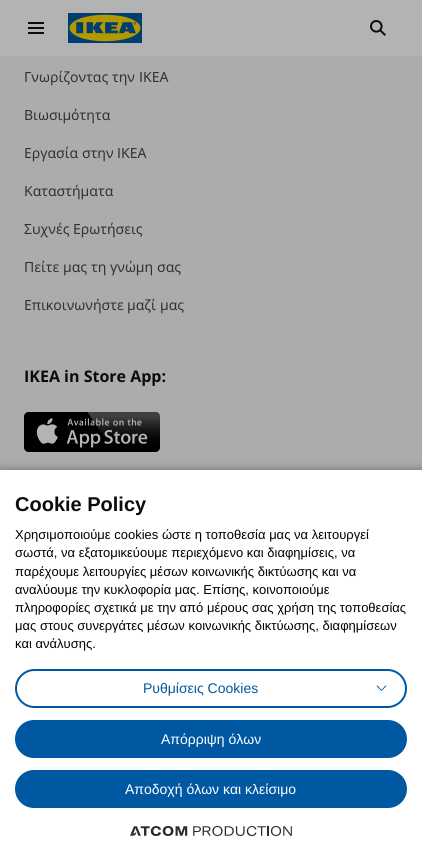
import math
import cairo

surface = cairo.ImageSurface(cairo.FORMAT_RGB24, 422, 860)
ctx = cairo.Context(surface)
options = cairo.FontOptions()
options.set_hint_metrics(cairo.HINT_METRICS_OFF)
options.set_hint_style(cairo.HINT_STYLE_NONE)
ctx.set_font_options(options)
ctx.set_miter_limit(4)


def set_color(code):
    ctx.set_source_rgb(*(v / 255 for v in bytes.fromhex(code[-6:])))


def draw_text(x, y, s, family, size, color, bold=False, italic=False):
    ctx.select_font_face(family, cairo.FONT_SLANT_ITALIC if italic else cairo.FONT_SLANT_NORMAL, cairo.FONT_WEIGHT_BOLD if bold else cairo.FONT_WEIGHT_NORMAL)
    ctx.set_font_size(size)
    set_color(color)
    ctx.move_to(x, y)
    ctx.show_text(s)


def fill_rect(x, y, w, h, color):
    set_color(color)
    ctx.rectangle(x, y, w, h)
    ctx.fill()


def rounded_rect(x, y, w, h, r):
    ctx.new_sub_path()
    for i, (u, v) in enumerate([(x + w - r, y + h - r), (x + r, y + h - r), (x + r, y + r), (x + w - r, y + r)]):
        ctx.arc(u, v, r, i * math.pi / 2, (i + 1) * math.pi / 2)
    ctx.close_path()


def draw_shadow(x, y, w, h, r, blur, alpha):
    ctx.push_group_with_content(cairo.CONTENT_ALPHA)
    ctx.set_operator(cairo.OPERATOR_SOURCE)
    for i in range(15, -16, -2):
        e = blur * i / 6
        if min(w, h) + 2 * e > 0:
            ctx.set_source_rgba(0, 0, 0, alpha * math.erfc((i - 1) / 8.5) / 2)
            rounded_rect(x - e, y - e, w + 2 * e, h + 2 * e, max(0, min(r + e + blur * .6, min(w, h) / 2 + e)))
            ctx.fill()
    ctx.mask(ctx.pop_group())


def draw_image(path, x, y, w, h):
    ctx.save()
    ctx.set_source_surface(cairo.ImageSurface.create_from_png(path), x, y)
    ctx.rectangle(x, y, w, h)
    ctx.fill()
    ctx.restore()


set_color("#acacac")
ctx.paint()
fill_rect(0, 0, 422, 56, "#b3b3b3")
draw_image("assets/img1.png", 28, 22, 16, 12)
draw_image("assets/img2.png", 68, 13, 74, 30)
draw_image("assets/img3.png", 370, 20, 16, 16)
draw_text(24, 82, "Γνωρίζοντας", "Noto Sans", 14, "#323232")
draw_text(112, 82, "την", "Noto Sans", 14, "#323232")
draw_text(139, 82, "IKEA", "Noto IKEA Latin", 14, "#323232")
draw_text(24, 120, "Βιωσιμότητα", "Noto Sans", 14, "#323232")
draw_text(24, 158, "Εργασία", "Noto Sans", 14, "#323232")
draw_text(82, 158, "στην", "Noto Sans", 14, "#323232")
draw_text(117, 158, "IKEA", "Noto IKEA Latin", 14, "#323232")
draw_text(24, 196, "Καταστήματα", "Noto Sans", 14, "#323232")
draw_text(24, 234, "Συχνές", "Noto Sans", 14, "#323232")
draw_text(73, 234, "Ερωτήσεις", "Noto Sans", 14, "#323232")
draw_text(24, 272, "Πείτε", "Noto Sans", 14, "#323232")
draw_text(63, 272, "μας", "Noto Sans", 14, "#323232")
draw_text(91, 272, "τη", "Noto Sans", 14, "#323232")
draw_text(110, 272, "γνώμη", "Noto Sans", 14, "#323232")
draw_text(157, 272, "σας", "Noto Sans", 14, "#323232")
draw_text(24, 310, "Επικοινωνήστε", "Noto Sans", 14, "#323232")
draw_text(127, 310, "μαζί", "Noto Sans", 14, "#323232")
draw_text(160, 310, "μας", "Noto Sans", 14, "#323232")
draw_text(24, 382, "IKEA in Store App:", "Noto IKEA Latin", 16, "#0c0c0c", bold=True)
draw_image("assets/img4.png", 24, 412, 136, 40)
set_color("#000000")
draw_shadow(0, 470, 422, 390, 0, 5, 0.37)
fill_rect(0, 470, 422, 390, "#ffffff")
draw_text(15, 511, "Cookie Policy", "Liberation Sans", 20, "#0c0c0c", bold=True)
draw_text(15, 539, "Χρησιμοποιούμε cookies ώστε η τοποθεσία μας να λειτουργεί", "Liberation Sans", 13, "#000000")
draw_text(15, 557, "σωστά, να εξατομικεύουμε περιεχόμενο και διαφημίσεις, να", "Liberation Sans", 13, "#000000")
draw_text(15, 576, "παρέχουμε λειτουργίες μέσων κοινωνικής δικτύωσης και να", "Liberation Sans", 13, "#000000")
draw_text(15, 594, "αναλύουμε την κυκλοφορία μας. Επίσης, κοινοποιούμε", "Liberation Sans", 13, "#000000")
draw_text(15, 612, "πληροφορίες σχετικά με την από μέρους σας χρήση της τοποθεσίας", "Liberation Sans", 13, "#000000")
draw_text(15, 630, "μας στους συνεργάτες μέσων κοινωνικής δικτύωσης, διαφημίσεων", "Liberation Sans", 13, "#000000")
draw_text(15, 648, "και ανάλυσης.", "Liberation Sans", 13, "#000000")
rounded_rect(16, 670, 390, 37, 18.5)
set_color("#0058a3")
ctx.stroke()
draw_text(143, 693, "Ρυθμίσεις Cookies", "Liberation Sans", 14, "#0058a3")
ctx.new_path()
ctx.move_to(385.5, 685.5)
ctx.line_to(386.5, 686)
ctx.line_to(381.5, 691)
ctx.line_to(381, 690.5)
ctx.close_path()
ctx.fill()
ctx.new_path()
ctx.move_to(377.5, 685.5)
ctx.line_to(382, 690.5)
ctx.line_to(381.5, 691)
ctx.line_to(376.5, 686)
ctx.close_path()
ctx.fill()
rounded_rect(16, 721, 390, 36, 18)
ctx.fill_preserve()
ctx.stroke()
draw_text(161, 744, "Απόρριψη όλων", "Liberation Sans", 14, "#ffffff")
set_color("#0058a3")
rounded_rect(16, 771, 390, 36, 18)
ctx.fill_preserve()
ctx.stroke()
draw_text(125, 794, "Αποδοχή όλων και κλείσιμο", "Liberation Sans", 14, "#ffffff")
draw_image("assets/img5.png", 130, 826, 162, 10)
surface.write_to_png("output.png")
